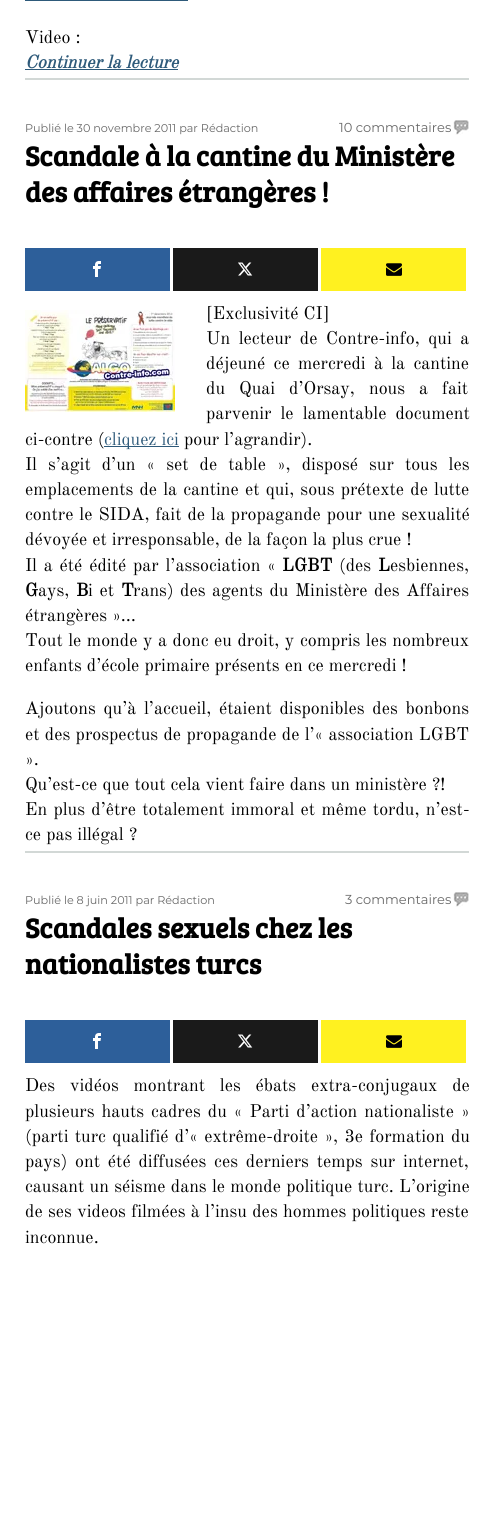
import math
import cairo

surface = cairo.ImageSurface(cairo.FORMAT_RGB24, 494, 1518)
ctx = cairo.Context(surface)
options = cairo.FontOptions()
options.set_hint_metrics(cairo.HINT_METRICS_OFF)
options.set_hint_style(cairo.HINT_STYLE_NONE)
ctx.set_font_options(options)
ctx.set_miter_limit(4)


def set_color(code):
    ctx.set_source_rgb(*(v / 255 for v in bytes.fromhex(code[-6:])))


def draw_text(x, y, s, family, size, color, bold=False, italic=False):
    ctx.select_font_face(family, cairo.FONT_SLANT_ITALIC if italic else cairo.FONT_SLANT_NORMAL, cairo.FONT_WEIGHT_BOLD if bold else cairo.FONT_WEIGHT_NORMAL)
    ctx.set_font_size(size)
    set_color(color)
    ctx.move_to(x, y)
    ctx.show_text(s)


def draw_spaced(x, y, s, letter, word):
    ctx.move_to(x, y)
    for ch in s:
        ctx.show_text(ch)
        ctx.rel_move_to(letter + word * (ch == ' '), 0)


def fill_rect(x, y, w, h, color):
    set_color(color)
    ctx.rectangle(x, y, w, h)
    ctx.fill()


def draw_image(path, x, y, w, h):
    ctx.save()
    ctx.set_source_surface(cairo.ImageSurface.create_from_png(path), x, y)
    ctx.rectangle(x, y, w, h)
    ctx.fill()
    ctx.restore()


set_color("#ffffff")
ctx.paint()
fill_rect(25, 78, 444, 2, "#d2d8d6")
fill_rect(25, 0, 163, 1, "#2e5a7a")
draw_text(25, 43, "Video :", "Old Standard TT", 18, "#000000")
draw_text(25, 68, "Continuer la lecture", "Old Standard TT", 18, "#2e5a7a", bold=True, italic=True)
fill_rect(25, 69, 153, 1, "#2e5a7a")
fill_rect(25, 851, 444, 2, "#d2d8d6")
draw_text(25, 132, "Publié le 30 novembre 2011 par Rédaction", "Montserrat", 11.2, "#686868")
draw_image("assets/img1.png", 453, 120, 16, 15)
draw_text(339, 132, "10 commentaires", "Montserrat", 13, "#686868")
draw_text(25, 166, "Scandale à la cantine du Ministère", "Bree Serif", 28, "#000000", bold=True)
draw_text(25, 202, "des affaires étrangères !", "Bree Serif", 28, "#000000", bold=True)
fill_rect(25, 248, 145, 43, "#2d5f9a")
draw_image("assets/img2.png", 93, 261, 8, 16)
fill_rect(173, 248, 145, 43, "#1a1a1a")
draw_image("assets/img3.png", 238, 262, 15, 14)
fill_rect(321, 248, 145, 43, "#fff120")
draw_image("assets/img4.png", 386, 263, 16, 13)
draw_image("assets/img5.png", 25, 310, 150, 102)
draw_text(206, 319, "[Exclusivité CI]", "Old Standard TT", 18, "#000000")
draw_spaced(206, 344, "Un lecteur de Contre-info, qui a", 0, 3.5)
draw_spaced(206, 369, "déjeuné ce mercredi à la cantine", 0, 3.25)
draw_spaced(206, 394, "du Quai d’Orsay, nous a fait", 0, 9)
draw_spaced(206, 419, "parvenir le lamentable document", 0, 4)
draw_text(25, 445, "ci-contre (", "Old Standard TT", 18, "#000000")
fill_rect(104, 446, 75, 1, "#2e5a7a")
draw_text(104, 445, "cliquez ici", "Old Standard TT", 18, "#2e5a7a")
draw_text(184, 445, "pour l’agrandir).", "Old Standard TT", 18, "#000000")
draw_spaced(25, 470, "Il s’agit d’un « set de table », disposé sur tous les", 0, 6)
draw_spaced(25, 495, "emplacements de la cantine et qui, sous prétexte de lutte", 0, 1.1)
draw_spaced(25, 520, "contre le SIDA, fait de la propagande pour une sexualité", 0, 0.9)
draw_text(25, 545, "dévoyée et irresponsable, de la façon la plus crue !", "Old Standard TT", 18, "#000000")
draw_spaced(25, 571, "Il a été édité par l’association «", 0, 1.75)
draw_text(282, 571, "LGBT", "Old Standard TT", 18, "#000000", bold=True)
draw_text(339, 571, "(des", "Old Standard TT", 18, "#000000")
draw_text(378, 571, "L", "Old Standard TT", 18, "#000000", bold=True)
draw_text(390, 571, "esbiennes,", "Old Standard TT", 18, "#000000")
draw_text(25, 596, "G", "Old Standard TT", 18, "#000000", bold=True)
draw_text(38, 596, "ays,", "Old Standard TT", 18, "#000000")
draw_text(76, 596, "B", "Old Standard TT", 18, "#000000", bold=True)
ctx.select_font_face("Old Standard TT")
draw_spaced(88, 596, "i et", 0, 1.5)
draw_text(121, 596, "T", "Old Standard TT", 18, "#000000", bold=True)
ctx.select_font_face("Old Standard TT")
draw_spaced(133, 596, "rans) des agents du Ministère des Affaires", 0, 1.5)
draw_text(25, 621, "étrangères »…", "Old Standard TT", 18, "#000000")
draw_spaced(25, 646, "Tout le monde y a donc eu droit, y compris les nombreux", 0, 0.5)
draw_text(25, 671, "enfants d’école primaire présents en ce mercredi !", "Old Standard TT", 18, "#000000")
draw_spaced(25, 714, "Ajoutons qu’à l’accueil, étaient disponibles des bonbons", 0, 2.75)
draw_spaced(25, 740, "et des prospectus de propagande de l’« association LGBT", 0, 0.25)
draw_text(25, 765, "».", "Old Standard TT", 18, "#000000")
draw_text(25, 790, "Qu’est-ce que tout cela vient faire dans un ministère ?!", "Old Standard TT", 18, "#000000")
draw_spaced(25, 815, "En plus d’être totalement immoral et même tordu, n’est-", 0, 1.25)
draw_text(25, 840, "ce pas illégal ?", "Old Standard TT", 18, "#000000")
draw_text(25, 904, "Publié le 8 juin 2011 par Rédaction", "Montserrat", 11.2, "#686868")
draw_image("assets/img1.png", 453, 892, 16, 15)
draw_text(345, 904, "3 commentaires", "Montserrat", 13, "#686868")
draw_text(25, 938, "Scandales sexuels chez les", "Bree Serif", 28, "#000000", bold=True)
draw_text(25, 974, "nationalistes turcs", "Bree Serif", 28, "#000000", bold=True)
fill_rect(25, 1020, 145, 43, "#2d5f9a")
draw_image("assets/img2.png", 93, 1033, 8, 16)
fill_rect(173, 1020, 145, 43, "#1a1a1a")
draw_image("assets/img3.png", 238, 1034, 15, 14)
fill_rect(321, 1020, 145, 43, "#fff120")
draw_image("assets/img4.png", 386, 1035, 16, 13)
ctx.select_font_face("Old Standard TT")
ctx.set_font_size(18)
set_color("#000000")
draw_spaced(25, 1091, "Des vidéos montrant les ébats extra-conjugaux de", 0, 9.75)
draw_spaced(25, 1117, "plusieurs hauts cadres du « Parti d’action nationaliste »", 0, 2)
draw_spaced(25, 1142, "(parti turc qualifié d’« extrême-droite », 3e formation du", 0, 1.25)
draw_spaced(25, 1167, "pays) ont été diffusées ces derniers temps sur internet,", 0, 2.75)
draw_spaced(25, 1192, "causant un séisme dans le monde politique turc. L’origine", 0, 0.25)
draw_spaced(25, 1217, "de ses videos filmées à l’insu des hommes politiques reste", 0, 0.25)
draw_text(25, 1243, "inconnue.", "Old Standard TT", 18, "#000000")
surface.write_to_png("output.png")
